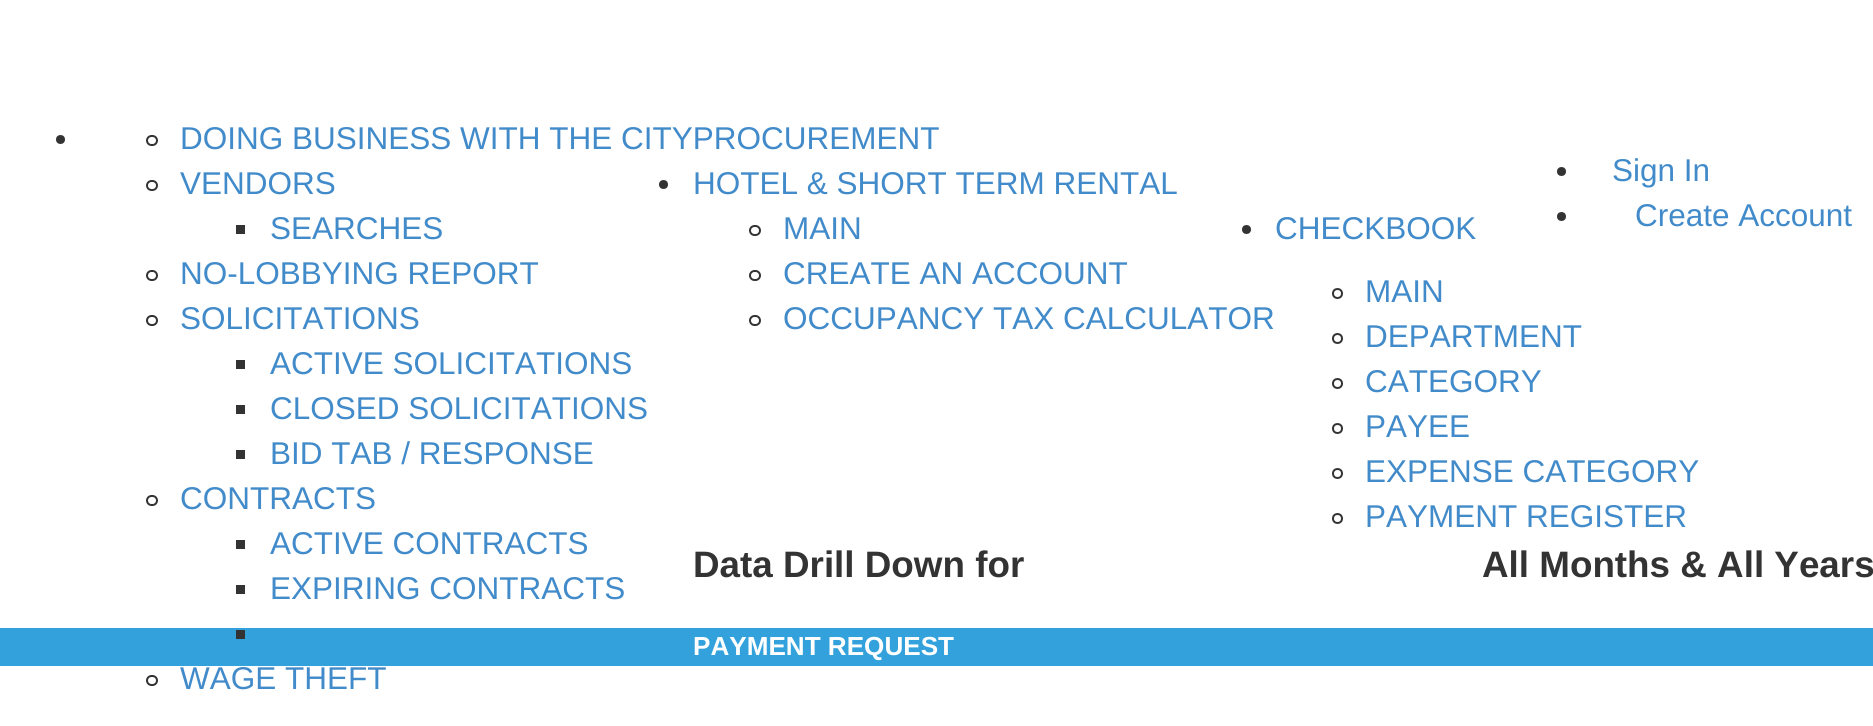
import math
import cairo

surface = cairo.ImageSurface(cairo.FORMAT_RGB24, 1873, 726)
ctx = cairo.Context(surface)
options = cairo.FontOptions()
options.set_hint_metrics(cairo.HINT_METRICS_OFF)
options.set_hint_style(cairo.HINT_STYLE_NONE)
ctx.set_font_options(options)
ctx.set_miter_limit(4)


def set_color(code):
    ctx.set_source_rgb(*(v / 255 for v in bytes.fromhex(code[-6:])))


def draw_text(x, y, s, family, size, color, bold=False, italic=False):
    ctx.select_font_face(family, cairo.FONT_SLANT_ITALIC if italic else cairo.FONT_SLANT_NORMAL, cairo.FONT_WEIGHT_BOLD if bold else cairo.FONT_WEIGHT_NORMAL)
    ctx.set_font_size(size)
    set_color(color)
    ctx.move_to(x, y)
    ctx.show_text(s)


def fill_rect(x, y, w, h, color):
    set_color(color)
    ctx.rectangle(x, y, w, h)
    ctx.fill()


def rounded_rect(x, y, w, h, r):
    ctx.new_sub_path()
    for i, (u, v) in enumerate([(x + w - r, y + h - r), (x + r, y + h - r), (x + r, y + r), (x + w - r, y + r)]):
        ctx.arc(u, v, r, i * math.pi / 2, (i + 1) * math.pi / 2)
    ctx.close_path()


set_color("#ffffff")
ctx.paint()
set_color("#333333")
ctx.arc(60.5, 139.5, 4.5, 0, 2 * math.pi)
ctx.fill()
rounded_rect(147, 136, 10, 9, 4.5)
ctx.stroke()
draw_text(180, 149, "DOING BUSINESS WITH THE CITYPROCUREMENT", "Liberation Sans", 31.5, "#428bca")
rounded_rect(147, 181, 10, 9, 4.5)
set_color("#333333")
ctx.stroke()
draw_text(180, 194, "VENDORS", "Liberation Sans", 31.5, "#428bca")
fill_rect(236, 225, 9, 9, "#333333")
draw_text(270, 239, "SEARCHES", "Liberation Sans", 31.5, "#428bca")
rounded_rect(147, 271, 10, 9, 4.5)
set_color("#333333")
ctx.stroke()
draw_text(180, 284, "NO-LOBBYING REPORT", "Liberation Sans", 31.5, "#428bca")
rounded_rect(147, 316, 10, 9, 4.5)
set_color("#333333")
ctx.stroke()
draw_text(180, 329, "SOLICITATIONS", "Liberation Sans", 31.5, "#428bca")
fill_rect(236, 360, 9, 9, "#333333")
draw_text(270, 374, "ACTIVE SOLICITATIONS", "Liberation Sans", 31.5, "#428bca")
fill_rect(236, 405, 9, 9, "#333333")
draw_text(270, 419, "CLOSED SOLICITATIONS", "Liberation Sans", 31.5, "#428bca")
fill_rect(236, 450, 9, 9, "#333333")
draw_text(270, 464, "BID TAB / RESPONSE", "Liberation Sans", 31.5, "#428bca")
rounded_rect(147, 496, 10, 9, 4.5)
set_color("#333333")
ctx.stroke()
draw_text(180, 509, "CONTRACTS", "Liberation Sans", 31.5, "#428bca")
fill_rect(236, 540, 9, 9, "#333333")
draw_text(270, 554, "ACTIVE CONTRACTS", "Liberation Sans", 31.5, "#428bca")
fill_rect(236, 585, 9, 9, "#333333")
draw_text(270, 599, "EXPIRING CONTRACTS", "Liberation Sans", 31.5, "#428bca")
fill_rect(0, 628, 1873, 38, "#33a2dc")
fill_rect(236, 630, 9, 9, "#333333")
rounded_rect(147, 676, 10, 9, 4.5)
ctx.stroke()
draw_text(180, 689, "WAGE THEFT", "Liberation Sans", 31.5, "#428bca")
set_color("#333333")
ctx.new_path()
ctx.arc(663.5, 184.5, 4.5, 0, 2 * math.pi)
ctx.fill()
draw_text(693, 194, "HOTEL & SHORT TERM RENTAL", "Liberation Sans", 31.5, "#428bca")
rounded_rect(750, 226, 10, 9, 4.5)
set_color("#333333")
ctx.stroke()
draw_text(783, 239, "MAIN", "Liberation Sans", 31.5, "#428bca")
rounded_rect(750, 271, 10, 9, 4.5)
set_color("#333333")
ctx.stroke()
draw_text(783, 284, "CREATE AN ACCOUNT", "Liberation Sans", 31.5, "#428bca")
rounded_rect(750, 316, 10, 9, 4.5)
set_color("#333333")
ctx.stroke()
draw_text(783, 329, "OCCUPANCY TAX CALCULATOR", "Liberation Sans", 31.5, "#428bca")
set_color("#333333")
ctx.new_path()
ctx.arc(1246.5, 229.5, 4.5, 0, 2 * math.pi)
ctx.fill()
draw_text(1275, 239, "CHECKBOOK", "Liberation Sans", 31.5, "#428bca")
ctx.new_path()
ctx.arc(1337.5, 293.5, 4.5, 0, 2 * math.pi)
set_color("#333333")
ctx.stroke()
draw_text(1365, 302, "MAIN", "Liberation Sans", 31.5, "#428bca")
ctx.new_path()
ctx.arc(1337.5, 338.5, 4.5, 0, 2 * math.pi)
set_color("#333333")
ctx.stroke()
draw_text(1365, 347, "DEPARTMENT", "Liberation Sans", 31.5, "#428bca")
ctx.new_path()
ctx.arc(1337.5, 383.5, 4.5, 0, 2 * math.pi)
set_color("#333333")
ctx.stroke()
draw_text(1365, 392, "CATEGORY", "Liberation Sans", 31.5, "#428bca")
ctx.new_path()
ctx.arc(1337.5, 428.5, 4.5, 0, 2 * math.pi)
set_color("#333333")
ctx.stroke()
draw_text(1365, 437, "PAYEE", "Liberation Sans", 31.5, "#428bca")
ctx.new_path()
ctx.arc(1337.5, 473.5, 4.5, 0, 2 * math.pi)
set_color("#333333")
ctx.stroke()
draw_text(1365, 482, "EXPENSE CATEGORY", "Liberation Sans", 31.5, "#428bca")
ctx.new_path()
ctx.arc(1337.5, 518.5, 4.5, 0, 2 * math.pi)
set_color("#333333")
ctx.stroke()
draw_text(1365, 527, "PAYMENT REGISTER", "Liberation Sans", 31.5, "#428bca")
set_color("#333333")
ctx.new_path()
ctx.arc(1561.5, 171.5, 4.5, 0, 2 * math.pi)
ctx.fill()
draw_text(1612, 181, "Sign In", "Liberation Sans", 31.5, "#428bca")
set_color("#333333")
ctx.new_path()
ctx.arc(1561.5, 216.5, 4.5, 0, 2 * math.pi)
ctx.fill()
draw_text(1635, 226, "Create Account", "Liberation Sans", 31.5, "#428bca")
draw_text(693, 577, "Data Drill Down for", "Liberation Sans", 36.8, "#333333", bold=True)
draw_text(1482, 577, "All Months & All Years", "Liberation Sans", 36.8, "#333333", bold=True)
draw_text(693, 655, "PAYMENT REQUEST", "Liberation Sans", 26.1, "#ffffff", bold=True)
surface.write_to_png("output.png")
